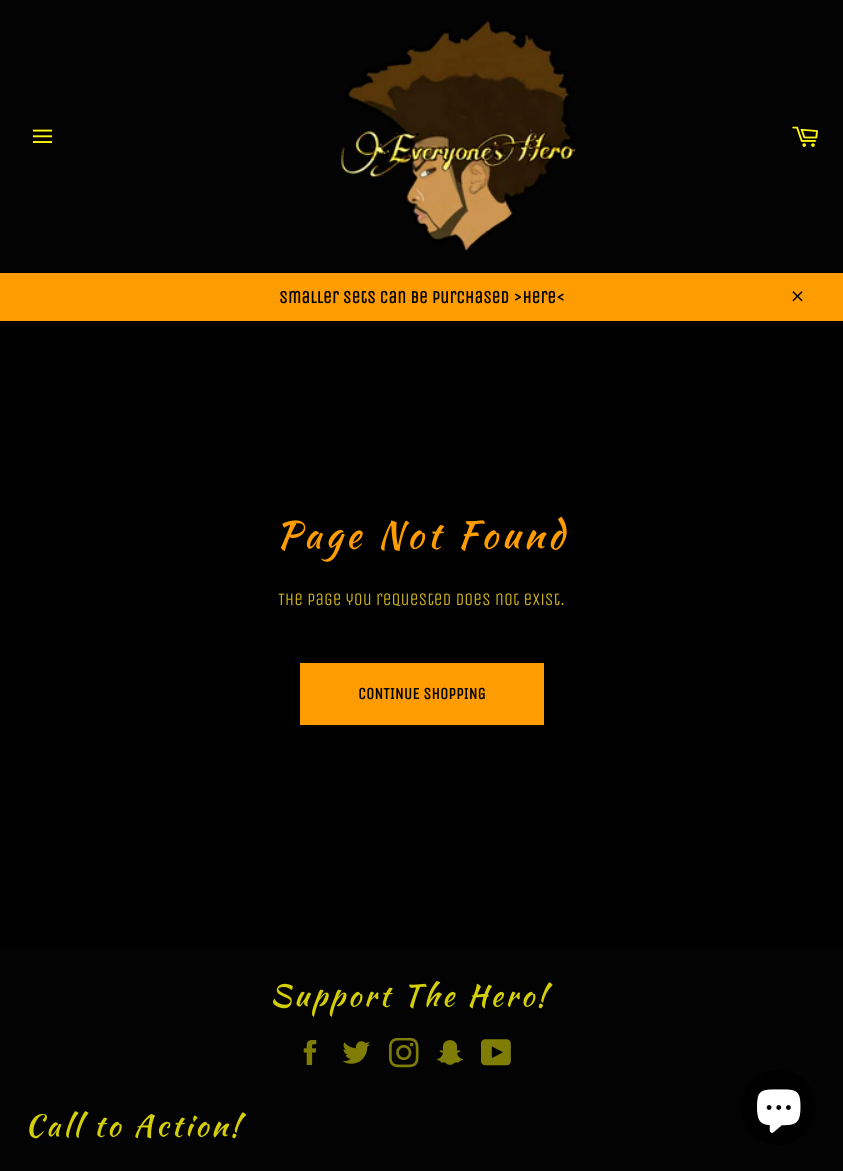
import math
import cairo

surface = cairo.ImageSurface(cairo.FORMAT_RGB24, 843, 1171)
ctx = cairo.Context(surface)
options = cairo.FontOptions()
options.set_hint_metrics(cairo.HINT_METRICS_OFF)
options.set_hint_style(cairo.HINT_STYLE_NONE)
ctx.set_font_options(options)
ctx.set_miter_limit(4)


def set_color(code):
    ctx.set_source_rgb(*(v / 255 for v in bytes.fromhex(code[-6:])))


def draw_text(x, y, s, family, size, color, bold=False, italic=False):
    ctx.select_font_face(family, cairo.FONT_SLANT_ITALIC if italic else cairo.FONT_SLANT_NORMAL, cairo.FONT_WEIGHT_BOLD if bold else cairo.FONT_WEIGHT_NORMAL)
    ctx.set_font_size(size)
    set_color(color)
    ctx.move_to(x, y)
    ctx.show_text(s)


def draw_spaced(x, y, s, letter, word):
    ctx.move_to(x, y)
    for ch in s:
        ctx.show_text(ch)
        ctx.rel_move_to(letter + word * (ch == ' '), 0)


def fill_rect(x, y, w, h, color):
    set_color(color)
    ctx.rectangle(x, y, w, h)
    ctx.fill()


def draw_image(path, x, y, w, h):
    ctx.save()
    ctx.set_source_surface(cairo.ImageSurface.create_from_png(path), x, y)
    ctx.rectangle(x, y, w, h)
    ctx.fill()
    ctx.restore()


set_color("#000000")
ctx.paint()
fill_rect(0, 0, 843, 273, "#030303")
draw_image("assets/img1.png", 32, 129, 21, 14)
draw_image("assets/img2.png", 341, 21, 236, 230)
draw_image("assets/img3.png", 792, 126, 26, 21)
fill_rect(0, 273, 843, 48, "#ff9d00")
draw_text(279, 303, "Smaller sets can be purchased >here<", "Unica One", 17.5, "#000000", bold=True)
draw_image("assets/img4.png", 792, 291, 11, 11)
ctx.select_font_face("Kaushan Script")
ctx.set_font_size(37.5)
set_color("#ff9d00")
draw_spaced(276, 548, "Page Not Found", 3.75, 0)
draw_text(278, 605, "The page you requested does not exist.", "Unica One", 17.5, "#cdb319")
fill_rect(300, 663, 244, 62, "#ff9d00")
draw_text(358, 699, "CONTINUE SHOPPING", "Unica One", 16.25, "#000000", bold=True)
fill_rect(0, 950, 843, 221, "#030303")
ctx.select_font_face("Kaushan Script")
ctx.set_font_size(30)
set_color("#d4cf08")
draw_spaced(270, 1006, "Support The Hero!", 3, 0)
draw_image("assets/img5.png", 303, 1040, 14, 25)
draw_image("assets/img6.png", 342, 1041, 28, 23)
draw_image("assets/img7.png", 389, 1038, 30, 30)
draw_image("assets/img8.png", 436, 1040, 28, 25)
draw_image("assets/img9.png", 481, 1039, 30, 27)
draw_spaced(25, 1136, "Call to Action!", 3, 0)
set_color("#000000")
ctx.new_path()
ctx.arc(778.5, 1107.5, 37.5, 0, 2 * math.pi)
ctx.fill()
draw_image("assets/img10.png", 757, 1089, 44, 44)
surface.write_to_png("output.png")
